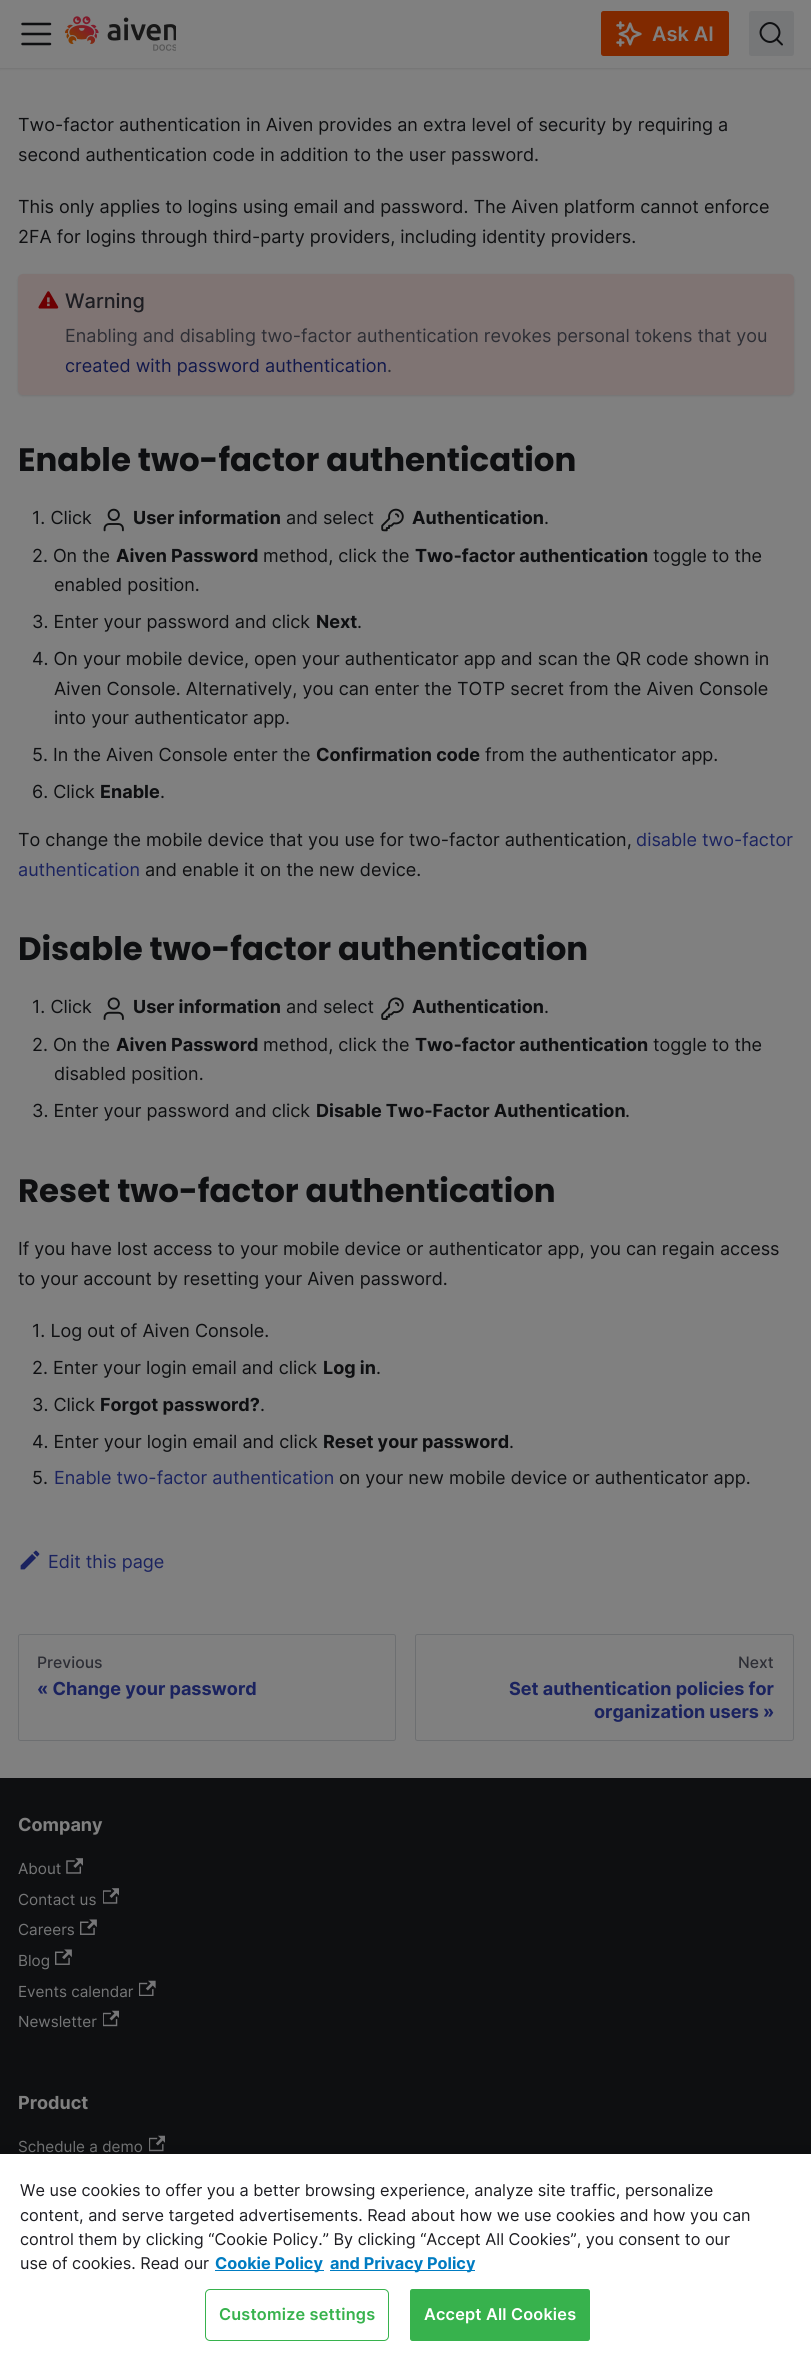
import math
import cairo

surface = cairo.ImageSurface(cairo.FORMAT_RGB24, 811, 2358)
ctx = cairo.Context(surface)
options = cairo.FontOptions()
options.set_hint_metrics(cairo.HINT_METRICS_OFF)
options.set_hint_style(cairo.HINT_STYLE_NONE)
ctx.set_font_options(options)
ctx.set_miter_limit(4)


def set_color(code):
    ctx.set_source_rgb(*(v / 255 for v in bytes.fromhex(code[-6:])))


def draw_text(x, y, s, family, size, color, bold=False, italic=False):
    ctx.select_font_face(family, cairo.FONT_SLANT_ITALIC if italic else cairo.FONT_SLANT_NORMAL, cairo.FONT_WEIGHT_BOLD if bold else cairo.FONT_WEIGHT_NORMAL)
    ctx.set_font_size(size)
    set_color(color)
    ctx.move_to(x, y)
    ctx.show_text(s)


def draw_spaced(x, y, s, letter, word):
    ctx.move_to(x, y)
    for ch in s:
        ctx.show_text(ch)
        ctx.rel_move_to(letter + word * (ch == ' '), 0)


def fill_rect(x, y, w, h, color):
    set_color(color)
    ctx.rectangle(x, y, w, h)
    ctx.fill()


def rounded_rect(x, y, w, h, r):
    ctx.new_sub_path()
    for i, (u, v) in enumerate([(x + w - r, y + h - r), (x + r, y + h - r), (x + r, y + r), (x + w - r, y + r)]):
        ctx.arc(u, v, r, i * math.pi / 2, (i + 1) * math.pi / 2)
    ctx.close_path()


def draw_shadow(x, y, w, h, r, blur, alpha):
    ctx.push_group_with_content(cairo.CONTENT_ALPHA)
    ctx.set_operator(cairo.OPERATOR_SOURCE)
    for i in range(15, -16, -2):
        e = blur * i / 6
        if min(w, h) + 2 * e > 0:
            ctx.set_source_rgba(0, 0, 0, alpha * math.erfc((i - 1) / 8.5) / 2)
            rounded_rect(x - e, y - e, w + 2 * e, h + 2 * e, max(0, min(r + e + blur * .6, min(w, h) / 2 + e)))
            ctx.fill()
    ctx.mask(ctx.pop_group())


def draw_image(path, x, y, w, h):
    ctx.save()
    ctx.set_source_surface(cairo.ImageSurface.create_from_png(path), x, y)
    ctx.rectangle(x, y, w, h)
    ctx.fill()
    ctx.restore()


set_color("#808080")
ctx.paint()
set_color("#000000")
draw_shadow(0, 1, 811, 68, 0, 1, 0.1)
fill_rect(0, 0, 811, 68, "#808080")
ctx.new_path()
ctx.move_to(22.5, 24)
ctx.line_to(50, 24)
ctx.move_to(22.5, 34)
ctx.line_to(50, 34)
ctx.move_to(22.5, 44)
ctx.line_to(50, 44)
set_color("#0e0f11")
ctx.set_line_width(2.5)
ctx.set_line_cap(cairo.LINE_CAP_ROUND)
ctx.stroke()
draw_image("assets/img1.png", 65, 16, 111, 35)
set_color("#802900")
rounded_rect(601, 11, 128, 45, 2.5)
ctx.fill()
draw_image("assets/img2.png", 616, 21, 26, 26)
draw_text(652, 41, "Ask AI", "Inter SemiBold", 20, "#808080")
set_color("#767778")
rounded_rect(749, 11, 45, 45, 2.5)
ctx.fill()
ctx.new_path()
ctx.move_to(776.5, 39)
ctx.line_to(782, 44.5)
ctx.line_to(776.5, 39)
ctx.curve_to(768, 48, 754.5, 34.5, 763.5, 26)
ctx.curve_to(772, 17, 785.5, 30.5, 776.5, 39)
ctx.close_path()
set_color("#0e0f11")
ctx.set_line_width(2)
ctx.set_line_join(cairo.LINE_JOIN_ROUND)
ctx.stroke()
draw_text(18, 131, "Two-factor authentication in Aiven provides an extra level of security by requiring a", "Inter", 18, "#0e0f11")
draw_text(18, 161, "second authentication code in addition to the user password.", "Inter", 18, "#0e0f11")
draw_text(18, 213, "This only applies to logins using email and password. The Aiven platform cannot enforce", "Inter", 18, "#0e0f11")
draw_text(18, 243, "2FA for logins through third-party providers, including identity providers.", "Inter", 18, "#0e0f11")
set_color("#000000")
draw_shadow(18, 275, 776, 121, 5, 1, 0.1)
set_color("#7f7473")
rounded_rect(18, 274, 776, 121, 5)
ctx.fill()
draw_image("assets/img3.png", 38, 291, 21, 18)
draw_text(65, 308, "Warning", "Inter Medium", 20, "#1d1d22")
draw_text(65, 342, "Enabling and disabling two-factor authentication revokes personal tokens that you", "Inter", 18, "#2d2e35")
draw_text(65, 372, "created with password authentication", "Inter", 18, "#11184b")
draw_text(387, 372, ".", "Inter", 18, "#2d2e35")
draw_text(18, 471, "Enable two-factor authentication", "Poppins", 32.4, "#0e0f11", bold=True)
draw_text(32, 524, "1. Click", "Inter", 18, "#0e0f11")
draw_image("assets/img4.png", 103, 508, 21, 24)
draw_text(133, 524, "User information", "Inter", 18, "#0e0f11", bold=True)
draw_text(286, 524, "and select", "Inter", 18, "#0e0f11")
draw_image("assets/img5.png", 381, 508, 23, 24)
draw_text(412, 524, "Authentication", "Inter", 18, "#0e0f11", bold=True)
draw_text(544, 524, ".", "Inter", 18, "#0e0f11")
draw_text(32, 562, "2. On the", "Inter", 18, "#0e0f11")
draw_text(116, 562, "Aiven Password", "Inter", 18, "#0e0f11", bold=True)
draw_text(263, 562, "method, click the", "Inter", 18, "#0e0f11")
draw_text(415, 562, "Two-factor authentication", "Inter", 18, "#0e0f11", bold=True)
draw_text(653, 562, "toggle to the", "Inter", 18, "#0e0f11")
draw_text(54, 591, "enabled position.", "Inter", 18, "#0e0f11")
draw_text(32, 628, "3. Enter your password and click", "Inter", 18, "#0e0f11")
draw_text(316, 628, "Next", "Inter", 18, "#0e0f11", bold=True)
draw_text(357, 628, ".", "Inter", 18, "#0e0f11")
draw_text(32, 665, "4. On your mobile device, open your authenticator app and scan the QR code shown in", "Inter", 18, "#0e0f11")
draw_text(54, 695, "Aiven Console. Alternatively, you can enter the TOTP secret from the Aiven Console", "Inter", 18, "#0e0f11")
draw_text(54, 724, "into your authenticator app.", "Inter", 18, "#0e0f11")
draw_text(32, 761, "5. In the Aiven Console enter the", "Inter", 18, "#0e0f11")
draw_text(316, 761, "Confirmation code", "Inter", 18, "#0e0f11", bold=True)
draw_text(485, 761, "from the authenticator app.", "Inter", 18, "#0e0f11")
draw_text(32, 798, "6. Click", "Inter", 18, "#0e0f11")
draw_text(100, 798, "Enable", "Inter", 18, "#0e0f11", bold=True)
draw_text(160, 798, ".", "Inter", 18, "#0e0f11")
draw_text(18, 846, "To change the mobile device that you use for two-factor authentication,", "Inter", 18, "#0e0f11")
draw_text(636, 846, "disable two-factor", "Inter", 18, "#1b235f")
draw_text(18, 876, "authentication", "Inter", 18, "#1b235f")
draw_text(145, 876, "and enable it on the new device.", "Inter", 18, "#0e0f11")
draw_text(18, 960, "Disable two-factor authentication", "Poppins", 32.4, "#0e0f11", bold=True)
draw_text(32, 1013, "1. Click", "Inter", 18, "#0e0f11")
draw_image("assets/img6.png", 103, 997, 21, 23)
draw_text(133, 1013, "User information", "Inter", 18, "#0e0f11", bold=True)
draw_text(286, 1013, "and select", "Inter", 18, "#0e0f11")
draw_image("assets/img7.png", 381, 997, 23, 23)
draw_text(412, 1013, "Authentication", "Inter", 18, "#0e0f11", bold=True)
draw_text(544, 1013, ".", "Inter", 18, "#0e0f11")
draw_text(32, 1051, "2. On the", "Inter", 18, "#0e0f11")
draw_text(116, 1051, "Aiven Password", "Inter", 18, "#0e0f11", bold=True)
draw_text(263, 1051, "method, click the", "Inter", 18, "#0e0f11")
draw_text(415, 1051, "Two-factor authentication", "Inter", 18, "#0e0f11", bold=True)
draw_text(653, 1051, "toggle to the", "Inter", 18, "#0e0f11")
draw_text(54, 1080, "disabled position.", "Inter", 18, "#0e0f11")
draw_text(32, 1117, "3. Enter your password and click", "Inter", 18, "#0e0f11")
draw_text(316, 1117, "Disable Two-Factor Authentication", "Inter", 18, "#0e0f11", bold=True)
draw_text(625, 1117, ".", "Inter", 18, "#0e0f11")
draw_text(18, 1202, "Reset two-factor authentication", "Poppins", 32.4, "#0e0f11", bold=True)
draw_text(18, 1255, "If you have lost access to your mobile device or authenticator app, you can regain access", "Inter", 18, "#0e0f11")
draw_text(18, 1285, "to your account by resetting your Aiven password.", "Inter", 18, "#0e0f11")
draw_text(32, 1337, "1. Log out of Aiven Console.", "Inter", 18, "#0e0f11")
draw_text(32, 1374, "2. Enter your login email and click", "Inter", 18, "#0e0f11")
draw_text(323, 1374, "Log in", "Inter", 18, "#0e0f11", bold=True)
draw_text(376, 1374, ".", "Inter", 18, "#0e0f11")
draw_text(32, 1411, "3. Click", "Inter", 18, "#0e0f11")
draw_text(100, 1411, "Forgot password?", "Inter", 18, "#0e0f11", bold=True)
draw_text(260, 1411, ".", "Inter", 18, "#0e0f11")
draw_text(32, 1448, "4. Enter your login email and click", "Inter", 18, "#0e0f11")
draw_text(323, 1448, "Reset your password", "Inter", 18, "#0e0f11", bold=True)
draw_text(509, 1448, ".", "Inter", 18, "#0e0f11")
draw_text(32, 1484, "5.", "Inter", 18, "#0e0f11")
draw_text(54, 1484, "Enable two-factor authentication", "Inter", 18, "#1b235f")
draw_text(339, 1484, "on your new mobile device or authenticator app.", "Inter", 18, "#0e0f11")
draw_image("assets/img8.png", 20, 1550, 20, 20)
draw_text(48, 1568, "Edit this page", "Inter", 18, "#1b235f")
rounded_rect(18.5, 1634.5, 377, 106, 2)
set_color("#6d6f71")
ctx.set_line_width(1)
ctx.set_line_cap(cairo.LINE_CAP_BUTT)
ctx.set_line_join(cairo.LINE_JOIN_MITER)
ctx.stroke()
draw_text(37, 1668, "Previous", "Inter Medium", 15.75, "#2d2e35")
draw_text(37, 1695, "« Change your password", "Inter", 18, "#1b235f", bold=True)
rounded_rect(415.5, 1634.5, 378, 106, 2)
set_color("#6d6f71")
ctx.stroke()
draw_text(738, 1668, "Next", "Inter Medium", 15.75, "#2d2e35")
draw_text(509, 1695, "Set authentication policies for", "Inter", 18, "#1b235f", bold=True)
draw_text(594, 1718, "organization users »", "Inter", 18, "#1b235f", bold=True)
fill_rect(0, 1778, 811, 376, "#0e0f11")
draw_text(18, 1831, "Company", "Inter", 18, "#808080", bold=True)
draw_text(18, 1874, "About", "Inter", 15.25, "#767778")
draw_image("assets/img9.png", 66, 1858, 17, 16)
draw_text(18, 1905, "Contact us", "Inter", 15.25, "#767778")
draw_image("assets/img10.png", 103, 1888, 16, 16)
draw_text(18, 1935, "Careers", "Inter", 15.25, "#767778")
draw_image("assets/img11.png", 80, 1919, 17, 16)
draw_text(18, 1966, "Blog", "Inter", 15.25, "#767778")
draw_image("assets/img11.png", 55, 1949, 17, 16)
draw_text(18, 1997, "Events calendar", "Inter", 15.25, "#767778")
draw_image("assets/img12.png", 139, 1980, 17, 16)
draw_text(18, 2027, "Newsletter", "Inter", 15.25, "#767778")
draw_image("assets/img13.png", 103, 2010, 16, 17)
draw_text(18, 2109, "Product", "Inter", 18, "#808080", bold=True)
draw_text(18, 2152, "Schedule a demo", "Inter", 15.25, "#767778")
draw_image("assets/img14.png", 149, 2135, 16, 17)
set_color("#000000")
draw_shadow(0, 2154, 811, 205, 0, 11, 0.2)
fill_rect(0, 2154, 811, 204, "#ffffff")
draw_text(20, 2196, "We use cookies to offer you a better browsing experience, analyze site traffic, personalize", "Inter", 16.25, "#1d1d22")
draw_text(20, 2221, "content, and serve targeted advertisements. Read about how we use cookies and how you can", "Inter", 16.25, "#1d1d22")
draw_text(20, 2245, "control them by clicking “Cookie Policy.” By clicking “Accept All Cookies”, you consent to our", "Inter", 16.25, "#1d1d22")
draw_text(20, 2269, "use of cookies. Read our", "Inter", 16.25, "#1d1d22")
fill_rect(215, 2270, 109, 1, "#007cc2")
draw_text(215, 2269, "Cookie Policy", "Inter", 16.25, "#007cc2", bold=True)
fill_rect(330, 2270, 145, 1, "#007cc2")
draw_text(330, 2269, "and Privacy Policy", "Inter", 16.25, "#007cc2", bold=True)
rounded_rect(205.5, 2289.5, 183, 51, 4.5)
set_color("#37b24d")
ctx.stroke()
ctx.select_font_face("Inter SemiBold")
draw_spaced(219, 2320, "Customize settings", 0.2, 0)
rounded_rect(410.5, 2289.5, 179, 51, 2)
ctx.fill_preserve()
ctx.stroke()
set_color("#ffffff")
draw_spaced(424, 2320, "Accept All Cookies", 0.2, 0)
surface.write_to_png("output.png")
